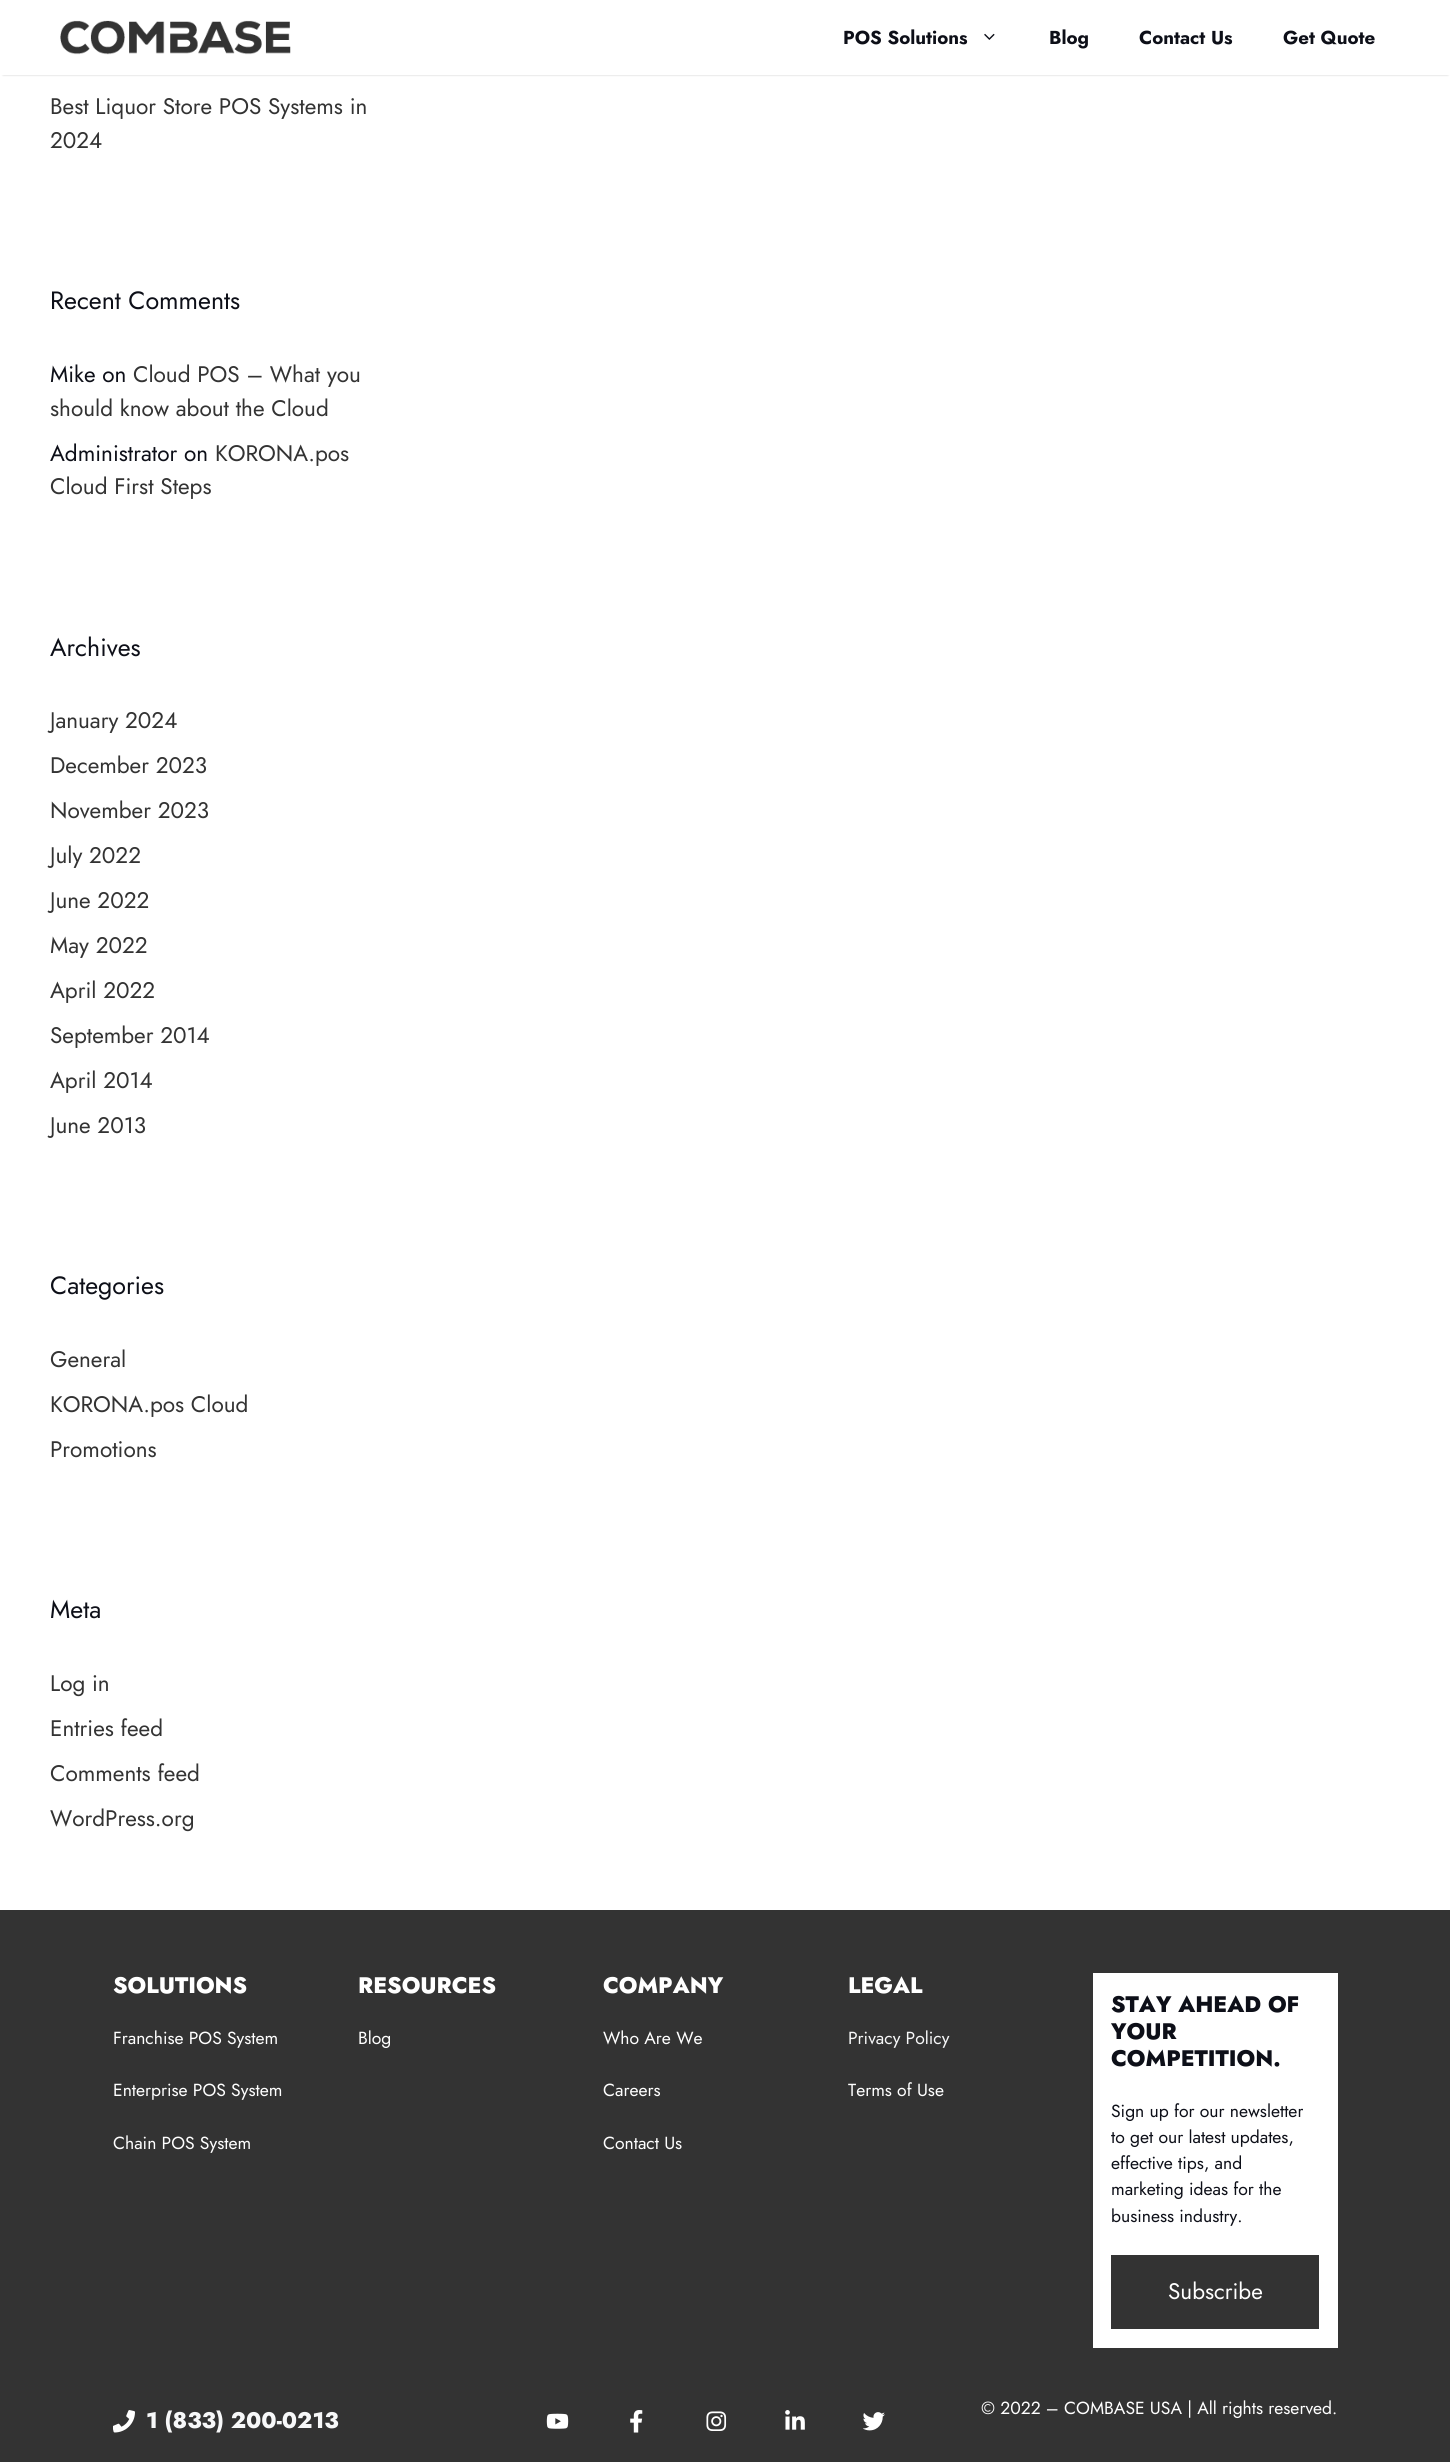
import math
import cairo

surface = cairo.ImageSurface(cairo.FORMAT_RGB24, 1450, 2462)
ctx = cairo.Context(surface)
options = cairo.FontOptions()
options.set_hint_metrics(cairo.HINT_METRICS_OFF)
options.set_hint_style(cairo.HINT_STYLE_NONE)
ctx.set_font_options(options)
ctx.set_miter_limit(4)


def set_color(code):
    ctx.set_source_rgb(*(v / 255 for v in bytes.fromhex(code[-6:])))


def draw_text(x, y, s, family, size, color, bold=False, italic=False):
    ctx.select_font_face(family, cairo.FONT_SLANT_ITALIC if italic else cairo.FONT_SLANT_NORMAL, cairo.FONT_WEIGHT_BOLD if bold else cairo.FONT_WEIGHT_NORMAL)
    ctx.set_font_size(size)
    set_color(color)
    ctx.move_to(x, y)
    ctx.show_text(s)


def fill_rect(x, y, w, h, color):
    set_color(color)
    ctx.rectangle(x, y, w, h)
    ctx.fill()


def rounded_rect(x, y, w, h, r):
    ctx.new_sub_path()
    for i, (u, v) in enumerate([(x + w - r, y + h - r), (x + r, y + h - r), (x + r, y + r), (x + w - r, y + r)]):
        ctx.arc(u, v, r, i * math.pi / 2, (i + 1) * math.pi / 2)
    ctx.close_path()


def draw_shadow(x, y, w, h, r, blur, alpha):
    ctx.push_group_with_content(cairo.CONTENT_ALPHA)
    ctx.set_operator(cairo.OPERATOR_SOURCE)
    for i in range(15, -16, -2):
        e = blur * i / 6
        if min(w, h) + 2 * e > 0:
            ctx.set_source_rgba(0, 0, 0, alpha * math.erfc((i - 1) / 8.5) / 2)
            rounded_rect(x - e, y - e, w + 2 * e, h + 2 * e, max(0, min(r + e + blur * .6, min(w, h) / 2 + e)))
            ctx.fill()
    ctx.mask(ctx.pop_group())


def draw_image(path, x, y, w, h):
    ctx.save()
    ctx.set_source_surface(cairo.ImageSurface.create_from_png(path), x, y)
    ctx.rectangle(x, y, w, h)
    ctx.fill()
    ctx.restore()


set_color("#ffffff")
ctx.paint()
set_color("#000000")
draw_shadow(3, 5, 1445, 70, 0, 1, 0.2)
fill_rect(1, 3, 1449, 72, "#ffffff")
draw_image("assets/img1.png", 60, 20, 231, 35)
draw_text(843, 44, "POS Solutions", "Jost", 18.75, "#0d0f18", bold=True)
draw_image("assets/img2.png", 984, 33, 11, 7)
draw_text(1049, 44, "Blog", "Jost", 18.75, "#0d0f18", bold=True)
draw_text(1139, 44, "Contact Us", "Jost", 18.75, "#0d0f18", bold=True)
draw_text(1283, 44, "Get Quote", "Jost", 18.75, "#0d0f18", bold=True)
draw_text(50, 114, "Best Liquor Store POS Systems in", "Jost", 22.5, "#333333")
draw_text(50, 148, "2024", "Jost", 22.5, "#333333")
draw_text(50, 309, "Recent Comments", "Jost", 25, "#0d0f18")
draw_text(50, 382, "Mike on", "Jost", 22.5, "#0d0f18")
draw_text(133, 382, "Cloud POS – What you", "Jost", 22.5, "#333333")
draw_text(50, 416, "should know about the Cloud", "Jost", 22.5, "#333333")
draw_text(50, 461, "Administrator on", "Jost", 22.5, "#0d0f18")
draw_text(215, 461, "KORONA.pos", "Jost", 22.5, "#333333")
draw_text(50, 494, "Cloud First Steps", "Jost", 22.5, "#333333")
draw_text(50, 656, "Archives", "Jost", 25, "#0d0f18")
draw_text(50, 728, "January 2024", "Jost", 22.5, "#333333")
draw_text(50, 773, "December 2023", "Jost", 22.5, "#333333")
draw_text(50, 818, "November 2023", "Jost", 22.5, "#333333")
draw_text(50, 863, "July 2022", "Jost", 22.5, "#333333")
draw_text(50, 908, "June 2022", "Jost", 22.5, "#333333")
draw_text(50, 953, "May 2022", "Jost", 22.5, "#333333")
draw_text(50, 998, "April 2022", "Jost", 22.5, "#333333")
draw_text(50, 1043, "September 2014", "Jost", 22.5, "#333333")
draw_text(50, 1088, "April 2014", "Jost", 22.5, "#333333")
draw_text(50, 1133, "June 2013", "Jost", 22.5, "#333333")
draw_text(50, 1294, "Categories", "Jost", 25, "#0d0f18")
draw_text(50, 1367, "General", "Jost", 22.5, "#333333")
draw_text(50, 1412, "KORONA.pos Cloud", "Jost", 22.5, "#333333")
draw_text(50, 1457, "Promotions", "Jost", 22.5, "#333333")
draw_text(50, 1618, "Meta", "Jost", 25, "#0d0f18")
draw_text(50, 1691, "Log in", "Jost", 22.5, "#333333")
draw_text(50, 1736, "Entries feed", "Jost", 22.5, "#333333")
draw_text(50, 1781, "Comments feed", "Jost", 22.5, "#333333")
draw_text(50, 1826, "WordPress.org", "Jost", 22.5, "#333333")
fill_rect(0, 1910, 1450, 552, "#333333")
draw_text(113, 1993, "SOLUTIONS", "Jost ExtraBold", 22.5, "#ffffff")
draw_text(113, 2044, "Franchise POS System", "Jost", 17.5, "#ffffff")
draw_text(113, 2096, "Enterprise POS System", "Jost", 17.5, "#ffffff")
draw_text(113, 2149, "Chain POS System", "Jost", 17.5, "#ffffff")
draw_text(358, 1993, "RESOURCES", "Jost ExtraBold", 22.5, "#ffffff")
draw_text(358, 2044, "Blog", "Jost", 17.5, "#ffffff")
draw_text(603, 1993, "COMPANY", "Jost ExtraBold", 22.5, "#ffffff")
draw_text(603, 2044, "Who Are We", "Jost", 17.5, "#ffffff")
draw_text(603, 2096, "Careers", "Jost", 17.5, "#ffffff")
draw_text(603, 2149, "Contact Us", "Jost", 17.5, "#ffffff")
draw_text(848, 1993, "LEGAL", "Jost ExtraBold", 22.5, "#ffffff")
draw_text(848, 2044, "Privacy Policy", "Jost", 17.5, "#f7f8f9")
draw_text(848, 2096, "Terms of Use", "Jost", 17.5, "#ffffff")
fill_rect(1093, 1973, 245, 375, "#ffffff")
draw_text(1111, 2012, "STAY AHEAD OF", "Jost ExtraBold", 22.5, "#0d0f18")
draw_text(1111, 2039, "YOUR", "Jost ExtraBold", 22.5, "#0d0f18")
draw_text(1111, 2066, "COMPETITION.", "Jost ExtraBold", 22.5, "#0d0f18")
draw_text(1111, 2117, "Sign up for our newsletter", "Jost", 17.5, "#0d0f18")
draw_text(1111, 2143, "to get our latest updates,", "Jost", 17.5, "#0d0f18")
draw_text(1111, 2169, "effective tips, and", "Jost", 17.5, "#0d0f18")
draw_text(1111, 2195, "marketing ideas for the", "Jost", 17.5, "#0d0f18")
draw_text(1111, 2222, "business industry.", "Jost", 17.5, "#0d0f18")
fill_rect(1111, 2255, 208, 74, "#333333")
draw_text(1168, 2299, "Subscribe", "Jost", 22.5, "#ffffff")
draw_image("assets/img3.png", 113, 2410, 22, 23)
draw_text(146, 2428, "1 (833) 200-0213", "Jost ExtraBold", 22.5, "#f7f8f9")
draw_image("assets/img4.png", 546, 2413, 23, 16)
draw_image("assets/img5.png", 630, 2410, 13, 23)
draw_image("assets/img6.png", 706, 2411, 21, 20)
draw_image("assets/img7.png", 785, 2410, 20, 20)
draw_image("assets/img8.png", 863, 2412, 22, 19)
draw_text(981, 2414, "© 2022 – COMBASE USA | All rights reserved.", "Jost", 17.5, "#ffffff")
surface.write_to_png("output.png")
